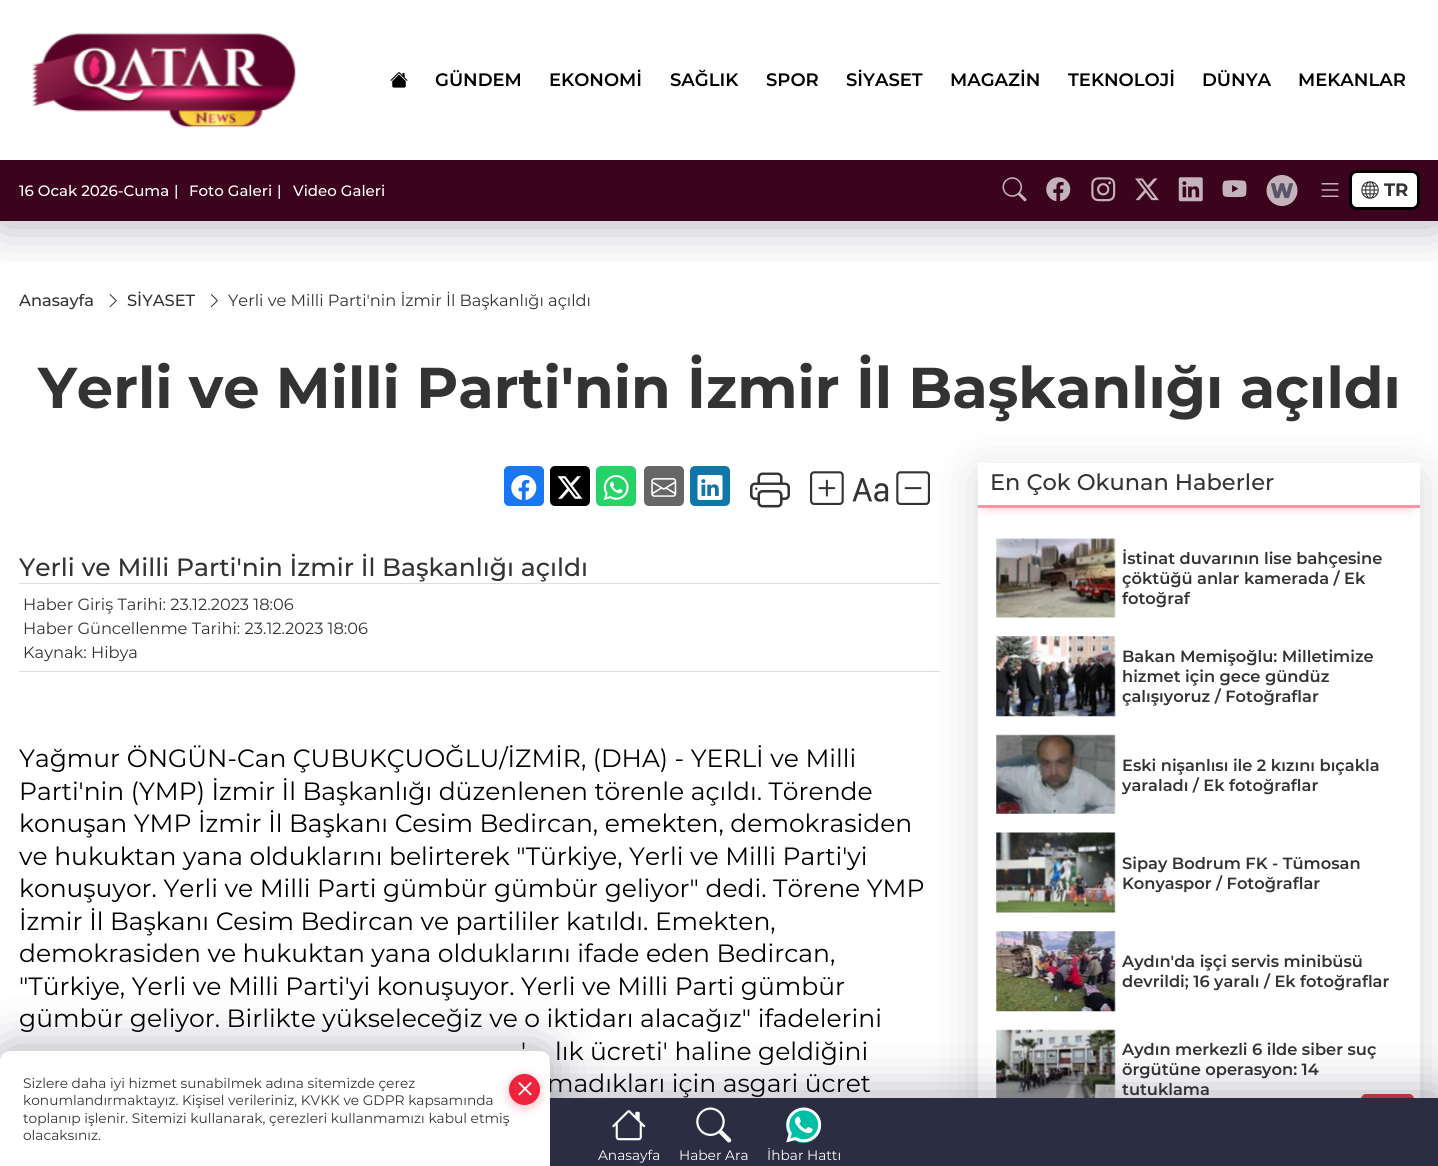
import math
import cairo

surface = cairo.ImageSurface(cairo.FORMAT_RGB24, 1438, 1166)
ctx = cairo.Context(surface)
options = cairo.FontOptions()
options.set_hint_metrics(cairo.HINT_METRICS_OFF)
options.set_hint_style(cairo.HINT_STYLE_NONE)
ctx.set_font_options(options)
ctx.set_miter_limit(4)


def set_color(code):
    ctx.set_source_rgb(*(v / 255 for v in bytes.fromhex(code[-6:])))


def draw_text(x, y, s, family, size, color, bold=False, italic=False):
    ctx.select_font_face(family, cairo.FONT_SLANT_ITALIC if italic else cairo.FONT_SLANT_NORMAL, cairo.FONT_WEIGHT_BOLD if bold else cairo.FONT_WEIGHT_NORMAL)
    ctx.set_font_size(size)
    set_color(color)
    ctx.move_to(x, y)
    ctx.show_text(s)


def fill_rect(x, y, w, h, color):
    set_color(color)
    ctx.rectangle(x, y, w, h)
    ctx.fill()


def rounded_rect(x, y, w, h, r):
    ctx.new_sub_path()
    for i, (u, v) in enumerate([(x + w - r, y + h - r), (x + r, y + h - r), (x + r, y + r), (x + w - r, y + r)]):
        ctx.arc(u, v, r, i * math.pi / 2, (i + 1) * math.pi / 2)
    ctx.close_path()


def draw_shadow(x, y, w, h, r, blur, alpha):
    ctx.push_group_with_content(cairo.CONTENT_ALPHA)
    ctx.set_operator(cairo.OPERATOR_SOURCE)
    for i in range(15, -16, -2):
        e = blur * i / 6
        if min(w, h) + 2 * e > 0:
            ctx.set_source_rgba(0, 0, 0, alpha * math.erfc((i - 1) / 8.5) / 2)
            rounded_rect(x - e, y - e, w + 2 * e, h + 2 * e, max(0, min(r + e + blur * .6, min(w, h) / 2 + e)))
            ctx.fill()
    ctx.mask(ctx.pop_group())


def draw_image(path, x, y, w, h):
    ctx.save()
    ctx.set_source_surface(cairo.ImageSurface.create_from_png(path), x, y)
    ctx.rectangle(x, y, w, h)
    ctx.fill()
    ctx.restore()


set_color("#ffffff")
ctx.paint()
draw_image("assets/img12.png", 109, 294, 8, 14)
draw_image("assets/img13.png", 210, 294, 8, 14)
ctx.save()
ctx.rectangle(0, 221, 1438, 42)
ctx.clip()
set_color("#2b2d42")
draw_shadow(0, 4, 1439, 221, 0, 24, 0.36)
ctx.restore()
draw_image("assets/img1.png", 31, 32, 265, 96)
draw_image("assets/img2.png", 390, 72, 18, 16)
draw_text(435, 86, "GÜNDEM", "Montserrat SemiBold", 18, "#000000")
draw_text(549, 86, "EKONOMİ", "Montserrat SemiBold", 18, "#000000")
draw_text(670, 86, "SAĞLIK", "Montserrat SemiBold", 18, "#000000")
draw_text(766, 86, "SPOR", "Montserrat SemiBold", 18, "#000000")
draw_text(846, 86, "SİYASET", "Montserrat SemiBold", 18, "#000000")
draw_text(950, 86, "MAGAZİN", "Montserrat SemiBold", 18, "#000000")
draw_text(1068, 86, "TEKNOLOJİ", "Montserrat SemiBold", 18, "#000000")
draw_text(1202, 86, "DÜNYA", "Montserrat SemiBold", 18, "#000000")
draw_text(1298, 86, "MEKANLAR", "Montserrat SemiBold", 18, "#000000")
fill_rect(0, 160, 1438, 60, "#3b031c")
fill_rect(0, 220, 1438, 1, "#350319")
draw_text(19, 196, "16 Ocak 2026-Cuma", "Montserrat Medium", 15, "#ffffff")
draw_text(174, 196, "|", "Montserrat Medium", 15, "#ffffff")
draw_text(189, 196, "Foto Galeri", "Montserrat Medium", 15, "#ffffff")
draw_text(277, 196, "|", "Montserrat Medium", 15, "#ffffff")
draw_text(293, 196, "Video Galeri", "Montserrat Medium", 15, "#ffffff")
draw_image("assets/img3.png", 1002, 177, 25, 25)
draw_image("assets/img4.png", 1046, 177, 25, 25)
draw_image("assets/img5.png", 1091, 177, 25, 25)
draw_image("assets/img6.png", 1135, 178, 24, 23)
draw_image("assets/img7.png", 1178, 177, 25, 25)
draw_image("assets/img8.png", 1222, 180, 25, 18)
draw_image("assets/img9.png", 1266, 175, 32, 31)
draw_image("assets/img10.png", 1321, 183, 18, 14)
rounded_rect(1350.5, 171.5, 68, 37, 6.5)
ctx.fill_preserve()
set_color("#000000")
ctx.set_line_width(3)
ctx.stroke()
draw_image("assets/img11.png", 1361, 181, 18, 18)
draw_text(1384, 196, "TR", "Montserrat", 18, "#333333", bold=True)
draw_text(19, 306, "Anasayfa", "Montserrat Medium", 16.25, "#333333")
draw_text(127, 306, "SİYASET", "Montserrat Medium", 16.25, "#333333")
draw_text(228, 306, "Yerli ve Milli Parti'nin İzmir İl Başkanlığı açıldı", "Montserrat", 16.25, "#333333")
draw_text(38, 408, "Yerli ve Milli Parti'nin İzmir İl Başkanlığı açıldı", "Montserrat", 57.5, "#333333", bold=True)
set_color("#1877f2")
rounded_rect(504, 466, 40, 40, 5)
ctx.fill()
draw_image("assets/img14.png", 511, 475, 26, 25)
set_color("#000000")
rounded_rect(550, 466, 40, 40, 5)
ctx.fill()
draw_image("assets/img15.png", 557, 476, 26, 23)
set_color("#25d366")
rounded_rect(596, 466, 40, 40, 5)
ctx.fill()
draw_image("assets/img16.png", 603, 475, 26, 25)
set_color("#666666")
rounded_rect(644, 466, 40, 40, 5)
ctx.fill()
draw_image("assets/img17.png", 651, 478, 26, 19)
set_color("#0e76a8")
rounded_rect(690, 466, 40, 40, 5)
ctx.fill()
draw_image("assets/img18.png", 697, 475, 26, 25)
draw_image("assets/img19.png", 750, 472, 40, 36)
draw_image("assets/img20.png", 810, 471, 34, 34)
draw_image("assets/img21.png", 852, 478, 37, 24)
draw_image("assets/img22.png", 896, 471, 34, 34)
draw_text(19, 576, "Yerli ve Milli Parti'nin İzmir İl Başkanlığı açıldı", "Montserrat Medium", 25, "#333333")
fill_rect(19, 583, 921, 1, "#dddddd")
fill_rect(19, 671, 921, 1, "#dddddd")
draw_text(23, 610, "Haber Giriş Tarihi: 23.12.2023 18:06", "Montserrat", 16.25, "#333333")
draw_text(23, 634, "Haber Güncellenme Tarihi: 23.12.2023 18:06", "Montserrat", 16.25, "#333333")
draw_text(23, 658, "Kaynak: Hibya", "Montserrat", 16.25, "#333333")
draw_text(19, 767, "Yağmur ÖNGÜN-Can ÇUBUKÇUOĞLU/İZMİR, (DHA) - YERLİ ve Milli", "Montserrat", 25, "#000000")
draw_text(19, 800, "Parti'nin (YMP) İzmir İl Başkanlığı düzenlenen törenle açıldı. Törende", "Montserrat", 25, "#000000")
draw_text(19, 832, "konuşan YMP İzmir İl Başkanı Cesim Bedircan, emekten, demokrasiden", "Montserrat", 25, "#000000")
draw_text(19, 865, "ve hukuktan yana olduklarını belirterek \"Türkiye, Yerli ve Milli Parti'yi", "Montserrat", 25, "#000000")
draw_text(19, 897, "konuşuyor. Yerli ve Milli Parti gümbür gümbür geliyor\" dedi. Törene YMP", "Montserrat", 25, "#000000")
draw_text(19, 930, "İzmir İl Başkanı Cesim Bedircan ve partililer katıldı. Emekten,", "Montserrat", 25, "#000000")
draw_text(19, 962, "demokrasiden ve hukuktan yana olduklarını ifade eden Bedircan,", "Montserrat", 25, "#000000")
draw_text(19, 995, "\"Türkiye, Yerli ve Milli Parti'yi konuşuyor. Yerli ve Milli Parti gümbür", "Montserrat", 25, "#000000")
draw_text(19, 1027, "gümbür geliyor. Birlikte yükseleceğiz ve o iktidarı alacağız\" ifadelerini", "Montserrat", 25, "#000000")
draw_text(521, 1060, "'", "Montserrat", 25, "#000000")
draw_text(555, 1060, "lık ücreti' haline geldiğini", "Montserrat", 25, "#000000")
draw_text(547, 1092, "madıkları için asgari ücret", "Montserrat", 25, "#000000")
ctx.save()
ctx.set_fill_rule(cairo.FILL_RULE_EVEN_ODD)
ctx.new_path()
ctx.move_to(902, 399)
ctx.line_to(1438, 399)
ctx.line_to(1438, 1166)
ctx.line_to(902, 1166)
ctx.close_path()
ctx.move_to(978, 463)
ctx.line_to(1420, 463)
ctx.line_to(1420, 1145)
ctx.line_to(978, 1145)
ctx.close_path()
ctx.clip()
set_color("#000000")
draw_shadow(978, 475, 442, 683, 0, 25, 0.15)
ctx.restore()
ctx.save()
ctx.set_fill_rule(cairo.FILL_RULE_EVEN_ODD)
ctx.new_path()
ctx.move_to(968, 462)
ctx.line_to(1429, 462)
ctx.line_to(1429, 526)
ctx.line_to(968, 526)
ctx.close_path()
ctx.move_to(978, 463)
ctx.line_to(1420, 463)
ctx.line_to(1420, 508)
ctx.line_to(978, 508)
ctx.close_path()
ctx.clip()
set_color("#ff566a")
draw_shadow(986, 480, 425, 28, 0, 5.5, 0.38)
ctx.restore()
ctx.set_source_rgba(1, 0.318, 0.404, 0.6)
ctx.rectangle(978, 505, 442, 3)
ctx.fill()
draw_text(990, 490, "En Çok Okunan Haberler", "Montserrat Medium", 22.5, "#333333")
draw_image("assets/img23.png", 996, 538, 120, 80)
draw_text(1122, 564, "İstinat duvarının lise bahçesine", "Montserrat SemiBold", 16.25, "#333333")
draw_text(1122, 584, "çöktüğü anlar kamerada / Ek", "Montserrat SemiBold", 16.25, "#333333")
draw_text(1122, 604, "fotoğraf", "Montserrat SemiBold", 16.25, "#333333")
draw_image("assets/img24.png", 996, 636, 120, 81)
draw_text(1122, 662, "Bakan Memişoğlu: Milletimize", "Montserrat SemiBold", 16.25, "#333333")
draw_text(1122, 682, "hizmet için gece gündüz", "Montserrat SemiBold", 16.25, "#333333")
draw_text(1122, 702, "çalışıyoruz / Fotoğraflar", "Montserrat SemiBold", 16.25, "#333333")
draw_image("assets/img25.png", 996, 734, 120, 80)
draw_text(1122, 771, "Eski nişanlısı ile 2 kızını bıçakla", "Montserrat SemiBold", 16.25, "#333333")
draw_text(1122, 791, "yaraladı / Ek fotoğraflar", "Montserrat SemiBold", 16.25, "#333333")
draw_image("assets/img26.png", 996, 832, 120, 81)
draw_text(1122, 869, "Sipay Bodrum FK - Tümosan", "Montserrat SemiBold", 16.25, "#333333")
draw_text(1122, 889, "Konyaspor / Fotoğraflar", "Montserrat SemiBold", 16.25, "#333333")
draw_image("assets/img27.png", 996, 931, 120, 81)
draw_text(1122, 967, "Aydın'da işçi servis minibüsü", "Montserrat SemiBold", 16.25, "#333333")
draw_text(1122, 987, "devrildi; 16 yaralı / Ek fotoğraflar", "Montserrat SemiBold", 16.25, "#333333")
draw_image("assets/img28.png", 996, 1029, 120, 69)
draw_text(1122, 1055, "Aydın merkezli 6 ilde siber suç", "Montserrat SemiBold", 16.25, "#333333")
draw_text(1122, 1075, "örgütüne operasyon: 14", "Montserrat SemiBold", 16.25, "#333333")
draw_text(1122, 1095, "tutuklama", "Montserrat SemiBold", 16.25, "#333333")
set_color("#dc3545")
rounded_rect(1361.5, 1094.5, 52, 46, 4.5)
ctx.fill_preserve()
ctx.set_line_width(1)
ctx.stroke()
set_color("#2b2d42")
draw_shadow(0, 1094, 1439, 69, 0, 24, 0.36)
fill_rect(550, 1098, 888, 68, "#2b2d42")
draw_image("assets/img29.png", 612, 1110, 34, 31)
draw_text(598, 1160, "Anasayfa", "Montserrat", 13.75, "#ffffff")
draw_image("assets/img30.png", 696, 1107, 36, 36)
draw_text(679, 1160, "Haber Ara", "Montserrat", 13.75, "#ffffff")
set_color("#00bfa5")
ctx.new_path()
ctx.arc(803.5, 1125.5, 17.5, 0, 2 * math.pi)
ctx.fill()
draw_image("assets/img31.png", 786, 1107, 36, 36)
draw_text(767, 1160, "İhbar Hattı", "Montserrat", 13.75, "#ffffff")
set_color("#2b2d42")
draw_shadow(0, 1048, 550, 115, 10, 24, 0.36)
set_color("#ffffff")
ctx.new_path()
ctx.move_to(10, 1051)
ctx.line_to(540, 1051)
ctx.curve_to(545.5, 1051, 550, 1055.5, 550, 1061)
ctx.line_to(550, 1166)
ctx.line_to(0, 1166)
ctx.line_to(0, 1061)
ctx.curve_to(0, 1055.5, 4.5, 1051, 10, 1051)
ctx.close_path()
ctx.fill()
draw_text(23, 1088, "Sizlere daha iyi hizmet sunabilmek adına sitemizde çerez", "Montserrat", 13.75, "#333333")
set_color("#ff566a")
draw_shadow(509, 1076, 31, 32, 15.5, 5, 0.38)
set_color("#ef233c")
ctx.arc(524.5, 1089.5, 15.5, 0, 2 * math.pi)
ctx.fill()
draw_image("assets/img32.png", 518, 1082, 14, 14)
draw_text(23, 1105, "konumlandırmaktayız. Kişisel verileriniz, KVKK ve GDPR kapsamında", "Montserrat", 13.75, "#333333")
draw_text(23, 1123, "toplanıp işlenir. Sitemizi kullanarak, çerezleri kullanmamızı kabul etmiş", "Montserrat", 13.75, "#333333")
draw_text(23, 1140, "olacaksınız.", "Montserrat", 13.75, "#333333")
surface.write_to_png("output.png")
